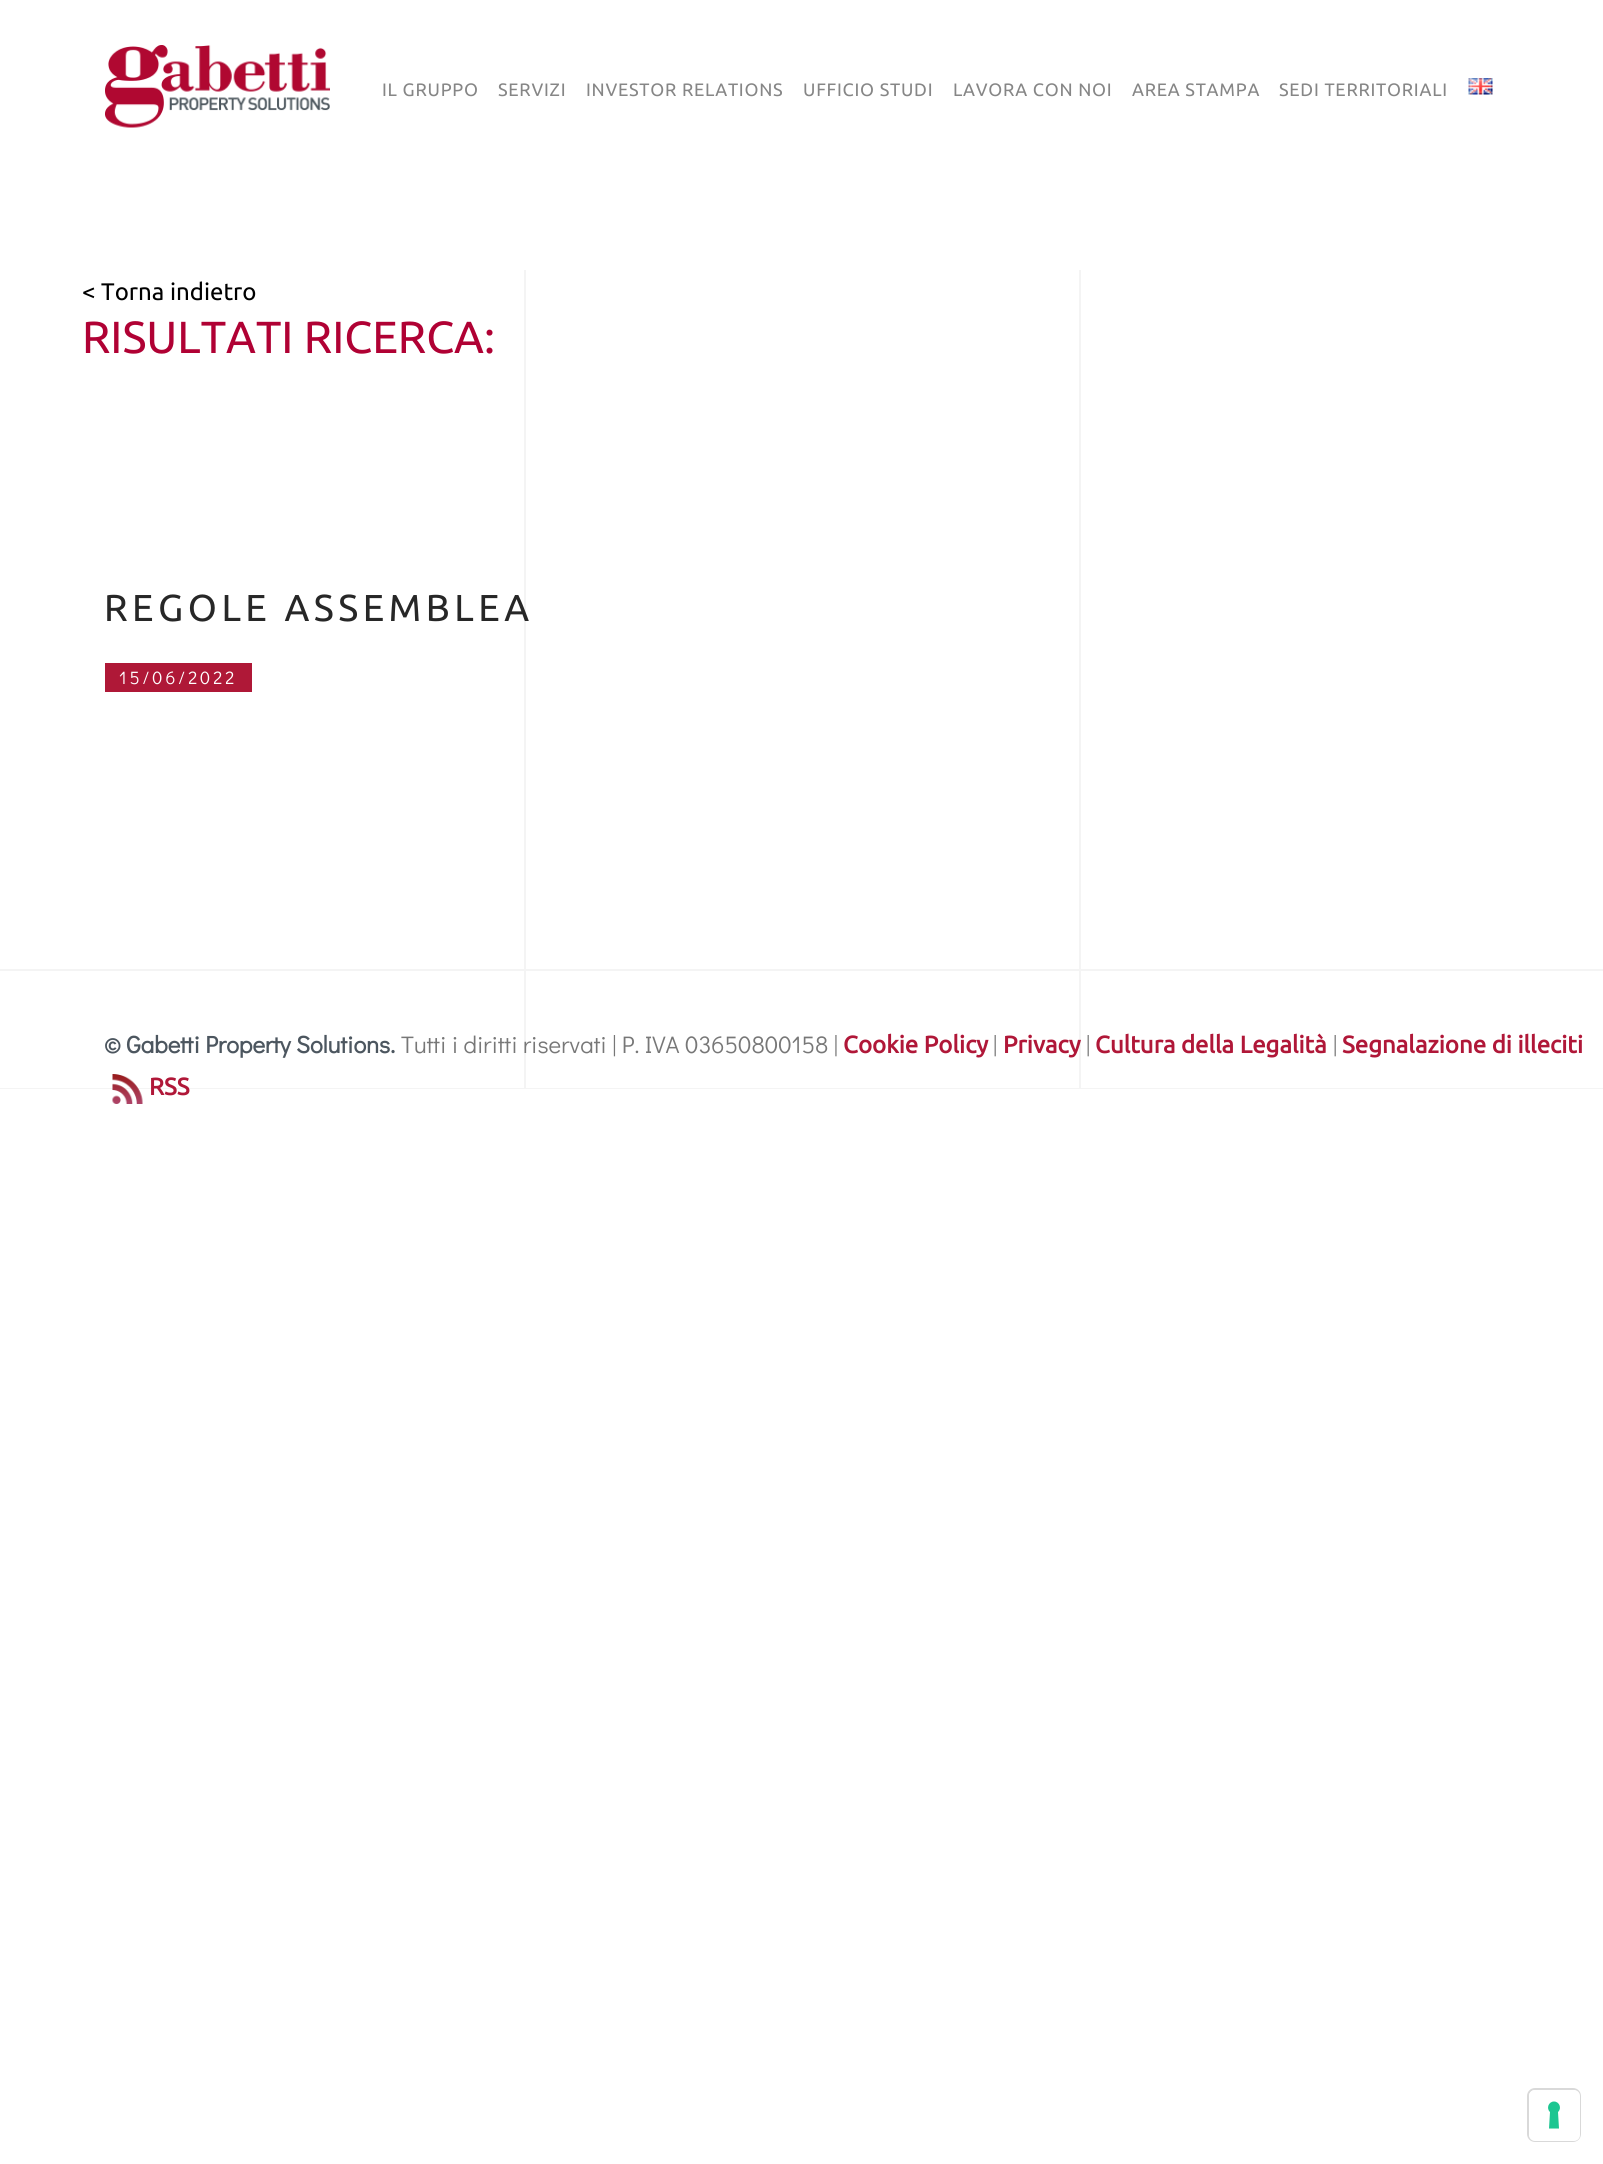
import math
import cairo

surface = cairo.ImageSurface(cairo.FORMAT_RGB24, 1603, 2164)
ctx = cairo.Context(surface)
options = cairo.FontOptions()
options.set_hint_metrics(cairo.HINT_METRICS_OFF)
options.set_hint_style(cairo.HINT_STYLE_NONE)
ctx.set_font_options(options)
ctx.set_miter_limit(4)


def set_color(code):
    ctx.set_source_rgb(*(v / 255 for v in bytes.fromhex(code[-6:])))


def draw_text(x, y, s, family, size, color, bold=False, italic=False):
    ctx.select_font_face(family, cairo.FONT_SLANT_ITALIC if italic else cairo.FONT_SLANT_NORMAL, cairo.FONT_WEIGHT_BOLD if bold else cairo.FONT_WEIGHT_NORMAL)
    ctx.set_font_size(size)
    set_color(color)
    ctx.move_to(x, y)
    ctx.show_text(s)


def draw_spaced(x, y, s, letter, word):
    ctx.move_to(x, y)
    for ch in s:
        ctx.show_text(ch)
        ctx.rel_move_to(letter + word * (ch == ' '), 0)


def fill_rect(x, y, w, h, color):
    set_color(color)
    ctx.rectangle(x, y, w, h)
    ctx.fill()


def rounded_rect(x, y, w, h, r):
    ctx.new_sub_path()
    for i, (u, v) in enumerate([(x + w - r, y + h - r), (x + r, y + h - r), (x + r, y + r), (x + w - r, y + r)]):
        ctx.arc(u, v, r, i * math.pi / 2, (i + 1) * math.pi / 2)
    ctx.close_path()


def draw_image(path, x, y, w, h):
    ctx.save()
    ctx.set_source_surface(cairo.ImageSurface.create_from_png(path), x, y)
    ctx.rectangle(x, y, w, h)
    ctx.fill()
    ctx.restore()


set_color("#ffffff")
ctx.paint()
draw_image("assets/img1.png", 105, 45, 225, 83)
ctx.select_font_face("Ubuntu")
ctx.set_font_size(18)
set_color("#868686")
draw_spaced(382, 96, "IL GRUPPO", 0.75, 0)
draw_spaced(498, 96, "SERVIZI", 0.75, 0)
draw_spaced(586, 96, "INVESTOR RELATIONS", 0.75, 0)
draw_spaced(803, 96, "UFFICIO STUDI", 0.75, 0)
draw_spaced(953, 96, "LAVORA CON NOI", 0.75, 0)
draw_spaced(1132, 96, "AREA STAMPA", 0.75, 0)
draw_spaced(1279, 96, "SEDI TERRITORIALI", 0.75, 0)
draw_image("assets/img2.png", 1468, 78, 25, 17)
fill_rect(0, 1088, 1603, 1, "#f4f4f4")
fill_rect(0, 969, 1603, 2, "#f4f4f4")
fill_rect(1079, 270, 2, 818, "#f4f4f4")
fill_rect(524, 270, 2, 818, "#f4f4f4")
draw_text(82, 300, "< Torna indietro", "Ubuntu", 24, "#000000")
draw_text(82, 353, "RISULTATI RICERCA:", "Ubuntu", 45, "#b00134")
ctx.set_font_size(37.5)
set_color("#272727")
draw_spaced(104, 621, "REGOLE ASSEMBLEA", 4.5, 0)
fill_rect(105, 663, 147, 29, "#af1837")
ctx.select_font_face("Didact Gothic")
ctx.set_font_size(18)
set_color("#ffffff")
draw_spaced(119, 684, "15/06/2022", 3, 0)
draw_text(104, 1053, "© Gabetti Property Solutions.", "Didact Gothic", 24, "#4c565f", bold=True)
draw_text(401, 1053, "Tutti i diritti riservati | P. IVA 03650800158 |", "Didact Gothic", 24, "#777777")
draw_text(843, 1053, "Cookie Policy", "Ubuntu", 24, "#b01738", bold=True)
draw_text(993, 1053, "|", "Didact Gothic", 24, "#777777")
draw_text(1003, 1053, "Privacy", "Ubuntu", 24, "#b01738", bold=True)
draw_text(1086, 1053, "|", "Didact Gothic", 24, "#777777")
draw_text(1095, 1053, "Cultura della Legalità", "Ubuntu", 24, "#b01738", bold=True)
draw_text(1333, 1053, "|", "Didact Gothic", 24, "#777777")
draw_text(1342, 1053, "Segnalazione di illeciti", "Ubuntu", 24, "#b01738", bold=True)
draw_image("assets/img3.png", 112, 1074, 31, 30)
draw_text(149, 1095, "RSS", "Ubuntu", 24, "#b01738", bold=True)
rounded_rect(1528, 2089, 52, 52, 7)
set_color("#d9d9d9")
ctx.stroke()
set_color("#ffffff")
rounded_rect(1529, 2090, 51, 51, 6)
ctx.fill()
set_color("#1cc691")
ctx.set_fill_rule(cairo.FILL_RULE_EVEN_ODD)
ctx.new_path()
ctx.move_to(1554, 2101.5)
ctx.curve_to(1559.5, 2101.5, 1562, 2108.5, 1558, 2112)
ctx.line_to(1559, 2128.5)
ctx.line_to(1549, 2128.5)
ctx.line_to(1550, 2112)
ctx.curve_to(1546, 2108.5, 1548.5, 2101.5, 1554, 2101.5)
ctx.close_path()
ctx.fill()
surface.write_to_png("output.png")
